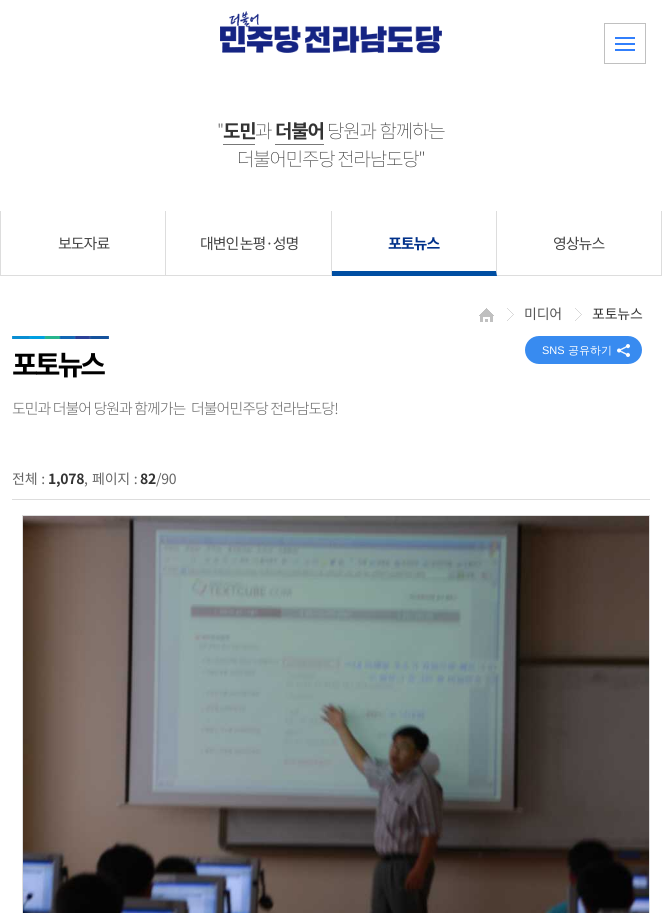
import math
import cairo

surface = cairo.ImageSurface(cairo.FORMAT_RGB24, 662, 913)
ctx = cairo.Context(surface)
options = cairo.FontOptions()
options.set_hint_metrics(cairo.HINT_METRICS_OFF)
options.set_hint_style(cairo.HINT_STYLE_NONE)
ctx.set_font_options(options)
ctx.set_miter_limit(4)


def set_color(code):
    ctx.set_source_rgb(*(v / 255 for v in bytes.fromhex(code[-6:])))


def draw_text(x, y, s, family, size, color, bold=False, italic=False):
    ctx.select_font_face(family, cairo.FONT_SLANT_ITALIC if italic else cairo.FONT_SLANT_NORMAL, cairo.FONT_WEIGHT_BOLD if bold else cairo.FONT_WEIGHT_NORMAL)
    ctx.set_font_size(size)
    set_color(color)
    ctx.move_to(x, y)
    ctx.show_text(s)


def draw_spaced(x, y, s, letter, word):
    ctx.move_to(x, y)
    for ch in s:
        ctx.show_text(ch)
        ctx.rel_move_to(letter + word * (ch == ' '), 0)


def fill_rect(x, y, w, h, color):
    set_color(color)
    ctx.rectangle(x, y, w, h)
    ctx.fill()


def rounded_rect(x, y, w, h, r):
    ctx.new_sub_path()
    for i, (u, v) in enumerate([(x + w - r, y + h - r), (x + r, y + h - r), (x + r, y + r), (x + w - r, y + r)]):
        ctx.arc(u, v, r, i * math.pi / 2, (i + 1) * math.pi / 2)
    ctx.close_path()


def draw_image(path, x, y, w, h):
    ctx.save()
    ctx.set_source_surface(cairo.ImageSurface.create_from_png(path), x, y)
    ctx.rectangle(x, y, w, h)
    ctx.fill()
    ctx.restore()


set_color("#ffffff")
ctx.paint()
draw_image("assets/img1.png", 220, 11, 222, 42)
draw_image("assets/img2.png", 604, 23, 42, 41)
ctx.select_font_face("Noto Sans KR Thin")
ctx.set_font_size(19)
set_color("#333333")
draw_spaced(217, 138, "\"", -1.25, 0)
ctx.select_font_face("Noto Sans KR", cairo.FONT_SLANT_NORMAL, cairo.FONT_WEIGHT_BOLD)
draw_spaced(223, 138, "도민", -1.25, 0)
fill_rect(223, 144, 32, 1, "#777777")
ctx.select_font_face("Noto Sans KR Thin")
set_color("#333333")
draw_spaced(255, 138, "과", -1.25, 0)
ctx.select_font_face("Noto Sans KR", cairo.FONT_SLANT_NORMAL, cairo.FONT_WEIGHT_BOLD)
draw_spaced(275, 138, "더불어", -1.25, 0)
fill_rect(275, 144, 49, 1, "#777777")
ctx.select_font_face("Noto Sans KR Thin")
set_color("#333333")
draw_spaced(327, 138, "당원과 함께하는", -1.25, 1)
draw_spaced(237, 166, "더불어민주당 전라남도당\"", -1.25, 0)
fill_rect(0, 275, 662, 1, "#dddddd")
fill_rect(0, 211, 1, 65, "#dddddd")
fill_rect(165, 211, 1, 65, "#dddddd")
ctx.select_font_face("Noto Sans KR")
ctx.set_font_size(15)
set_color("#444444")
draw_spaced(58, 249, "보도자료", -1, 0)
fill_rect(331, 211, 1, 65, "#dddddd")
set_color("#444444")
draw_spaced(200, 249, "대변인 논평·성명", -1, -1)
set_color("#dddddd")
ctx.new_path()
ctx.move_to(497, 211)
ctx.line_to(497, 276)
ctx.line_to(496, 271)
ctx.line_to(496, 211)
ctx.close_path()
ctx.fill()
set_color("#004ea2")
ctx.new_path()
ctx.move_to(497, 276)
ctx.line_to(332, 276)
ctx.line_to(332, 271)
ctx.line_to(496, 271)
ctx.close_path()
ctx.fill()
ctx.select_font_face("Noto Sans KR", cairo.FONT_SLANT_NORMAL, cairo.FONT_WEIGHT_BOLD)
set_color("#01318a")
draw_spaced(388, 249, "포토뉴스", -1, 0)
fill_rect(661, 211, 1, 65, "#dddddd")
ctx.select_font_face("Noto Sans KR")
set_color("#444444")
draw_spaced(553, 249, "영상뉴스", -1, 0)
draw_image("assets/img3.png", 507, 308, 7, 13)
draw_image("assets/img4.png", 479, 308, 15, 14)
draw_image("assets/img3.png", 575, 308, 7, 13)
ctx.set_font_size(14)
set_color("#555555")
draw_spaced(524, 319, "미디어", -0.25, 0)
set_color("#333333")
draw_spaced(592, 319, "포토뉴스", -0.25, 0)
set_color("#388bf0")
rounded_rect(525, 336, 117, 28, 14)
ctx.fill()
draw_image("assets/img5.png", 617, 344, 13, 13)
draw_text(542, 354, "SNS", "Liberation Sans", 11, "#ffffff")
draw_text(568, 354, "공유하기", "WenQuanYi Zen Hei Medium", 11, "#ffffff")
draw_image("assets/img6.png", 12, 336, 97, 3)
ctx.select_font_face("Noto Sans KR", cairo.FONT_SLANT_NORMAL, cairo.FONT_WEIGHT_BOLD)
ctx.set_font_size(28)
set_color("#000000")
draw_spaced(12, 375, "포토뉴스", -3, 0)
ctx.select_font_face("Noto Sans KR Light")
ctx.set_font_size(15)
set_color("#666666")
draw_spaced(12, 414, "도민과 더불어 당원과 함께가는", -1, 0)
draw_spaced(191, 414, "더불어민주당 전라남도당!", -1, 0)
ctx.select_font_face("Noto Sans KR")
ctx.set_font_size(14)
draw_spaced(12, 484, "전체 :", -0.25, 1)
ctx.select_font_face("Noto Sans KR", cairo.FONT_SLANT_NORMAL, cairo.FONT_WEIGHT_BOLD)
set_color("#333333")
draw_spaced(48, 484, "1,078", -0.25, 0)
ctx.select_font_face("Noto Sans KR")
set_color("#666666")
draw_spaced(84, 484, ",", -0.25, 0)
draw_spaced(92, 484, "페이지 :", -0.25, 1)
ctx.select_font_face("Noto Sans KR", cairo.FONT_SLANT_NORMAL, cairo.FONT_WEIGHT_BOLD)
set_color("#333333")
draw_spaced(140, 484, "82", -0.25, 0)
ctx.select_font_face("Noto Sans KR")
set_color("#666666")
draw_spaced(156, 484, "/90", -0.25, 0)
fill_rect(12, 499, 638, 1, "#dddddd")
ctx.rectangle(22.5, 515.5, 627, 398)
ctx.set_line_width(1)
ctx.stroke()
draw_image("assets/img7.png", 23, 516, 626, 397)
surface.write_to_png("output.png")
